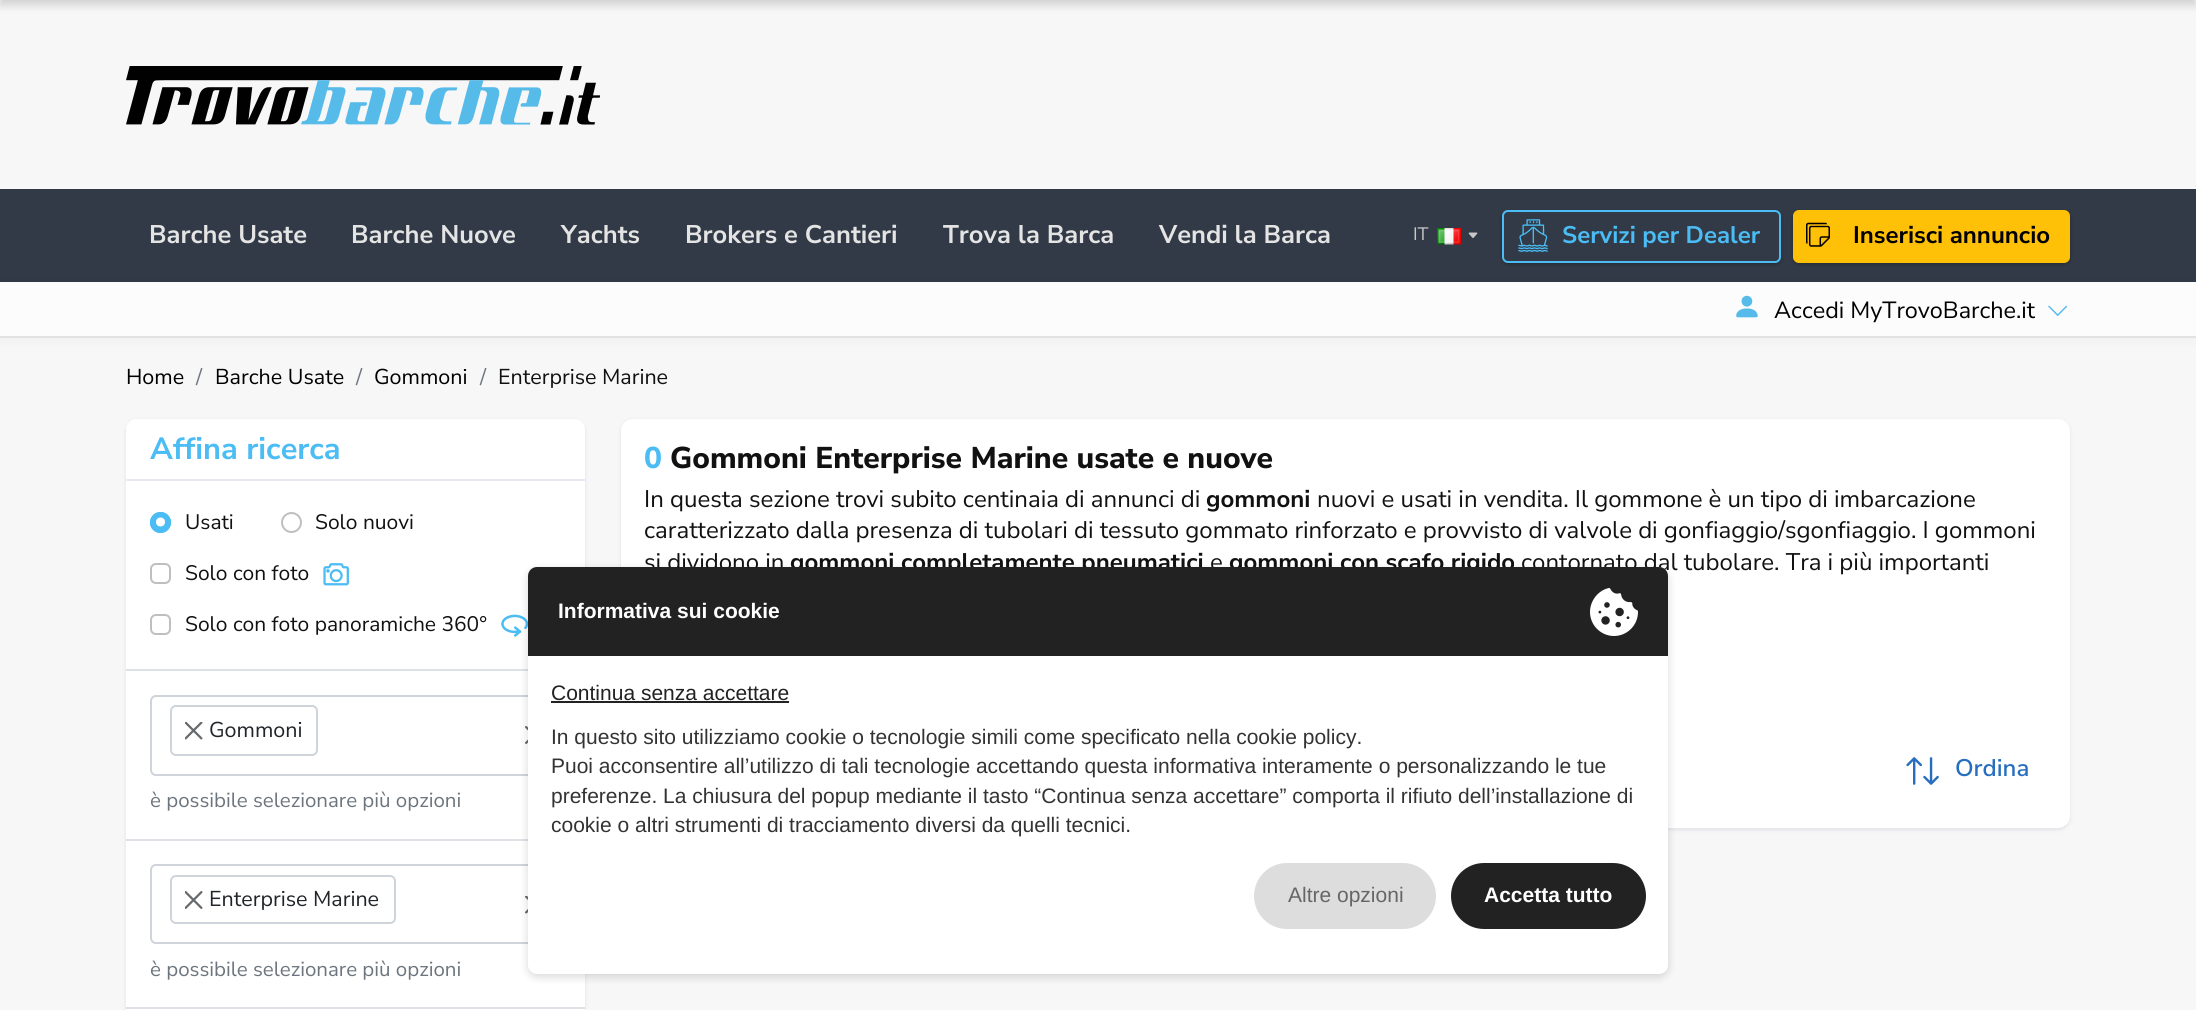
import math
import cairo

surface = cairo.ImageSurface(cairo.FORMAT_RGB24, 2196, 1010)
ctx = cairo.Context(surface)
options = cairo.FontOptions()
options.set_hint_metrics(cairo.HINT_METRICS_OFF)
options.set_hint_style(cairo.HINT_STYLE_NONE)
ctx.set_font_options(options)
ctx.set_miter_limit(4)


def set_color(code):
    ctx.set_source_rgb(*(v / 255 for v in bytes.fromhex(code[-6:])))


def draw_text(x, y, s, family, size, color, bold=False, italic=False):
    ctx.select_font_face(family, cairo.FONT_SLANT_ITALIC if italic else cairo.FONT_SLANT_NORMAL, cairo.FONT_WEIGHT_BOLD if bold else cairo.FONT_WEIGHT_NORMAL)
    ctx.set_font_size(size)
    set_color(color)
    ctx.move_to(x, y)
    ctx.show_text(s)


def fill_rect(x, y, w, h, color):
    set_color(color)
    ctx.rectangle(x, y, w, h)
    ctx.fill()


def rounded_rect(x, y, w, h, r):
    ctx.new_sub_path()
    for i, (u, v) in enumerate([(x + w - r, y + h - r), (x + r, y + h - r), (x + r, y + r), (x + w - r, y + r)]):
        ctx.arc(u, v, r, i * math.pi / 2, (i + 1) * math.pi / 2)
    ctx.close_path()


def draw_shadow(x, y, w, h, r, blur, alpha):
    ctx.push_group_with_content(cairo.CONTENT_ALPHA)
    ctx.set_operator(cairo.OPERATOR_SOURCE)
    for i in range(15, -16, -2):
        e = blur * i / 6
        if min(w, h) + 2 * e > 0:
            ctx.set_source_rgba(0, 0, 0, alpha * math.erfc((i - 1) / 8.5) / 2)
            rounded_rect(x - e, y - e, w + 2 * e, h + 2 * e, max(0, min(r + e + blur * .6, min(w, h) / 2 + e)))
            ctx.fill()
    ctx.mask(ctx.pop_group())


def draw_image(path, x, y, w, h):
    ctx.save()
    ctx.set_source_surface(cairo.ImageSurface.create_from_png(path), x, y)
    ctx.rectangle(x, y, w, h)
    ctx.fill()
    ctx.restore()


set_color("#f7f7f7")
ctx.paint()
draw_image("assets/img1.png", 126, 66, 474, 59)
fill_rect(0, 189, 2196, 93, "#313a46")
draw_text(149, 243, "Barche Usate", "Nunito Sans", 25.5, "#e4e4e4", bold=True)
draw_text(351, 243, "Barche Nuove", "Nunito Sans", 25.5, "#e4e4e4", bold=True)
draw_text(561, 243, "Yachts", "Nunito Sans", 25.5, "#e4e4e4", bold=True)
draw_text(685, 243, "Brokers e Cantieri", "Nunito Sans", 25.5, "#e4e4e4", bold=True)
draw_text(943, 243, "Trova la Barca", "Nunito Sans", 25.5, "#e4e4e4", bold=True)
draw_text(1159, 243, "Vendi la Barca", "Nunito Sans", 25.5, "#e4e4e4", bold=True)
draw_text(1413, 240, "IT", "Nunito Sans", 18, "#c7c7c7")
draw_image("assets/img2.png", 1437, 228, 24, 17)
draw_image("assets/img3.png", 1468, 232, 10, 6)
ctx.save()
ctx.set_fill_rule(cairo.FILL_RULE_EVEN_ODD)
ctx.new_path()
ctx.move_to(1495, 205)
ctx.line_to(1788, 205)
ctx.line_to(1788, 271)
ctx.line_to(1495, 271)
ctx.close_path()
ctx.move_to(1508, 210)
ctx.line_to(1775, 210)
ctx.curve_to(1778.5, 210, 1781, 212.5, 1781, 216)
ctx.line_to(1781, 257)
ctx.curve_to(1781, 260.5, 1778.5, 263, 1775, 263)
ctx.line_to(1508, 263)
ctx.curve_to(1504.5, 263, 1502, 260.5, 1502, 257)
ctx.line_to(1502, 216)
ctx.curve_to(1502, 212.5, 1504.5, 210, 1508, 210)
ctx.close_path()
ctx.clip()
set_color("#000000")
draw_shadow(1502, 212, 279, 52, 6, 2, 0.3)
ctx.restore()
rounded_rect(1503, 211, 277, 51, 5)
set_color("#4bbcf4")
ctx.stroke()
draw_image("assets/img4.png", 1518, 219, 30, 33)
draw_text(1562, 243, "Servizi per Dealer", "Nunito Sans", 24, "#4bbcf4", bold=True)
set_color("#000000")
draw_shadow(1793, 212, 277, 52, 6, 2, 0.3)
set_color("#ffc107")
rounded_rect(1794, 211, 275, 51, 5)
ctx.fill_preserve()
ctx.stroke()
draw_image("assets/img5.png", 1806, 222, 24, 25)
draw_text(1853, 243, "Inserisci annuncio", "Nunito Sans", 24, "#000000", bold=True)
set_color("#000000")
draw_shadow(0, 282, 2196, 56, 0, 6, 0.05)
fill_rect(0, 282, 2196, 54, "#fcfcfc")
fill_rect(0, 336, 2196, 2, "#e2e2e2")
draw_image("assets/img6.png", 1736, 295, 22, 23)
draw_text(1774, 318, "Accedi MyTrovoBarche.it", "Nunito Sans", 23.4, "#000000")
draw_image("assets/img7.png", 2048, 305, 20, 11)
set_color("#000000")
draw_shadow(0, -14, 2196, 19, 0, 4.5, 0.16)
draw_text(126, 384, "Home", "Nunito Sans", 21.5, "#000000")
draw_text(196, 384, "/", "Nunito Sans", 21.5, "#6c757d")
draw_text(215, 384, "Barche Usate", "Nunito Sans", 21.5, "#000000")
draw_text(356, 384, "/", "Nunito Sans", 21.5, "#6c757d")
draw_text(374, 384, "Gommoni", "Nunito Sans", 21.5, "#000000")
draw_text(480, 384, "/", "Nunito Sans", 21.5, "#6c757d")
draw_text(498, 384, "Enterprise Marine", "Nunito Sans", 21.5, "#111111")
set_color("#030047")
draw_shadow(126, 420, 459, 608, 12, 2, 0.09)
set_color("#ffffff")
rounded_rect(126, 419, 459, 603, 12)
ctx.fill()
ctx.new_path()
ctx.move_to(137, 419)
ctx.line_to(574, 419)
ctx.curve_to(580, 419, 585, 424, 585, 430)
ctx.line_to(585, 480)
ctx.line_to(126, 480)
ctx.line_to(126, 430)
ctx.curve_to(126, 424, 131, 419, 137, 419)
ctx.close_path()
ctx.fill()
fill_rect(126, 479, 459, 2, "#eae7f5")
draw_text(150, 459, "Affina ricerca", "Nunito Sans", 30.75, "#4bbcf4", bold=True)
ctx.new_path()
ctx.arc(160.5, 522.5, 10.5, 0, 2 * math.pi)
ctx.fill()
set_color("#ffffff")
ctx.arc(160.5, 522, 4.5, 0, 2 * math.pi)
ctx.fill()
ctx.arc(160.5, 522.5, 9.5, 0, 2 * math.pi)
set_color("#4bbcf4")
ctx.stroke()
draw_text(185, 529, "Usati", "Nunito Sans", 21, "#111111")
ctx.new_path()
ctx.arc(291.5, 522.5, 9.5, 0, 2 * math.pi)
set_color("#bfbfbf")
ctx.stroke()
draw_text(315, 529, "Solo nuovi", "Nunito Sans", 21, "#111111")
rounded_rect(151, 564, 19, 19, 5)
set_color("#bfbfbf")
ctx.stroke()
draw_text(185, 580, "Solo con foto", "Nunito Sans", 21, "#111111")
draw_image("assets/img8.png", 323, 563, 26, 23)
rounded_rect(151, 615, 19, 19, 5)
set_color("#bfbfbf")
ctx.stroke()
draw_text(185, 631, "Solo con foto panoramiche 360°", "Nunito Sans", 21, "#111111")
draw_image("assets/img9.png", 501, 614, 27, 23)
fill_rect(126, 669, 402, 2, "#dee2e6")
rounded_rect(151, 696, 409, 79, 5)
set_color("#ced4da")
ctx.stroke()
rounded_rect(171, 706, 146, 49, 5)
ctx.stroke()
draw_image("assets/img10.png", 185, 722, 18, 18)
draw_text(209, 737, "Gommoni", "Nunito Sans", 21.5, "#212529")
draw_image("assets/img11.png", 525, 726, 3, 18)
draw_text(150, 807, "è possibile selezionare più opzioni", "Nunito Sans", 20.5, "#6c757d")
fill_rect(126, 839, 402, 2, "#dee2e6")
rounded_rect(151, 865, 409, 78, 5)
set_color("#ced4da")
ctx.stroke()
rounded_rect(171, 876, 224, 47, 5)
ctx.stroke()
draw_image("assets/img12.png", 185, 891, 18, 18)
draw_text(209, 906, "Enterprise Marine", "Nunito Sans", 21.5, "#212529")
draw_image("assets/img13.png", 525, 896, 3, 18)
draw_text(150, 976, "è possibile selezionare più opzioni", "Nunito Sans", 20.5, "#6c757d")
fill_rect(126, 1007, 459, 2, "#dee2e6")
set_color("#030047")
draw_shadow(621, 420, 1449, 410, 12, 2, 0.09)
set_color("#ffffff")
rounded_rect(621, 419, 1449, 409, 12)
ctx.fill()
draw_text(644, 468, "0", "Nunito Sans ExtraBold", 30, "#4bbcf4")
draw_text(670, 468, "Gommoni Enterprise Marine usate e nuove", "Nunito Sans ExtraBold", 30, "#111111")
draw_text(644, 507, "In questa sezione trovi subito centinaia di annunci di", "Nunito Sans", 24, "#111111")
draw_text(1206, 507, "gommoni", "Nunito Sans", 24, "#111111", bold=True)
draw_text(1317, 507, "nuovi e usati in vendita. Il gommone è un tipo di imbarcazione", "Nunito Sans", 24, "#111111")
draw_text(644, 538, "caratterizzato dalla presenza di tubolari di tessuto gommato rinforzato e provvisto di valvole di gonfiaggio/sgonfiaggio. I gommoni", "Nunito Sans", 24, "#111111")
draw_text(644, 570, "si dividono in", "Nunito Sans", 24, "#111111")
draw_text(790, 570, "gommoni completamente pneumatici", "Nunito Sans", 24, "#111111", bold=True)
draw_text(1210, 570, "e", "Nunito Sans", 24, "#111111")
draw_text(1229, 570, "gommoni con scafo rigido", "Nunito Sans", 24, "#111111", bold=True)
draw_text(1521, 570, "contornato dal tubolare. Tra i più importanti", "Nunito Sans", 24, "#111111")
draw_image("assets/img14.png", 1906, 757, 33, 28)
draw_text(1955, 776, "Ordina", "Nunito Sans SemiBold", 24, "#286ebe")
set_color("#000000")
draw_shadow(528, 570, 1140, 407, 9, 4.5, 0.15)
set_color("#ffffff")
rounded_rect(528, 567, 1140, 407, 9)
ctx.fill()
set_color("#222222")
ctx.new_path()
ctx.move_to(537, 567)
ctx.line_to(1659, 567)
ctx.curve_to(1664, 567, 1668, 571, 1668, 576)
ctx.line_to(1668, 656)
ctx.line_to(528, 656)
ctx.line_to(528, 576)
ctx.curve_to(528, 571, 532, 567, 537, 567)
ctx.close_path()
ctx.fill()
draw_text(558, 618, "Informativa sui cookie", "Liberation Sans", 21, "#ffffff", bold=True)
draw_image("assets/img15.png", 1590, 588, 48, 48)
draw_text(551, 700, "Continua senza accettare", "Liberation Sans", 21, "#222222")
fill_rect(551, 701, 238, 2, "#222222")
draw_text(551, 744, "In questo sito utilizziamo cookie o tecnologie simili come specificato nella cookie policy.", "Liberation Sans", 21, "#333333")
draw_text(551, 773, "Puoi acconsentire all’utilizzo di tali tecnologie accettando questa informativa interamente o personalizzando le tue", "Liberation Sans", 21, "#333333")
draw_text(551, 803, "preferenze. La chiusura del popup mediante il tasto “Continua senza accettare” comporta il rifiuto dell’installazione di", "Liberation Sans", 21, "#333333")
draw_text(551, 832, "cookie o altri strumenti di tracciamento diversi da quelli tecnici.", "Liberation Sans", 21, "#333333")
set_color("#dddddd")
rounded_rect(1254, 863, 182, 66, 33)
ctx.fill()
draw_text(1288, 902, "Altre opzioni", "Liberation Sans", 21, "#666666")
set_color("#222222")
rounded_rect(1451, 863, 195, 66, 33)
ctx.fill()
draw_text(1484, 902, "Accetta tutto", "Liberation Sans", 21, "#ffffff", bold=True)
surface.write_to_png("output.png")
